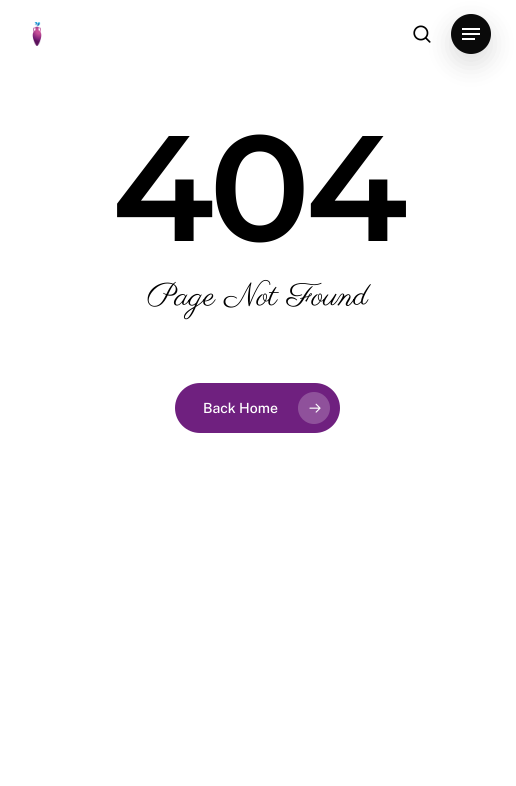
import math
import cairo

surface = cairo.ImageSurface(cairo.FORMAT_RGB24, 516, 786)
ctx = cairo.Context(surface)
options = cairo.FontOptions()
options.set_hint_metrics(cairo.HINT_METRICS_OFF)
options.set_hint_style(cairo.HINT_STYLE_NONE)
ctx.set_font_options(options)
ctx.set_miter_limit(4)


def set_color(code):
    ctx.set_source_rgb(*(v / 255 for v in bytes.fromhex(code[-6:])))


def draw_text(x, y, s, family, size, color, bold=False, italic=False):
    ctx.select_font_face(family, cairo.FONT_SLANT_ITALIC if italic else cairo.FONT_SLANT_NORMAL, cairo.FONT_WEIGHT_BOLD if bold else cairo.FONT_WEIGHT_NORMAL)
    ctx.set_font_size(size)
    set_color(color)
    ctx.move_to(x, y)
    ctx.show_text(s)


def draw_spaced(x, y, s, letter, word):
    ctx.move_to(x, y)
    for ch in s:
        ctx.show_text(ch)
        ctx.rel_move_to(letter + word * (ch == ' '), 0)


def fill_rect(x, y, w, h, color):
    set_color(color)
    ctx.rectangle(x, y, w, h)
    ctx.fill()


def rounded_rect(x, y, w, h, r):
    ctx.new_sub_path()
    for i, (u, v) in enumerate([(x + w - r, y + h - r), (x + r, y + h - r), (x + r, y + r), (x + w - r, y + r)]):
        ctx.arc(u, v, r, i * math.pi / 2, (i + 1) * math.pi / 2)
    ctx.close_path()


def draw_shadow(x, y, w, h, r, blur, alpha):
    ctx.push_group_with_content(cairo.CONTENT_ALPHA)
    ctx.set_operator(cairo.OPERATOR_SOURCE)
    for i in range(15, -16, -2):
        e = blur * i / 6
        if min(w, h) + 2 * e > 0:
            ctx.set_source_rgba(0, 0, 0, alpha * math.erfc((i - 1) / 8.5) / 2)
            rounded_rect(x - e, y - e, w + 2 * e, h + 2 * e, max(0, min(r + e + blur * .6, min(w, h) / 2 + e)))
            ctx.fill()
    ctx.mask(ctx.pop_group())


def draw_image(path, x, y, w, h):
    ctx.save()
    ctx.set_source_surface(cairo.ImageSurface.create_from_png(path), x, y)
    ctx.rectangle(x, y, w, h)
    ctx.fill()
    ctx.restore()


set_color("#ffffff")
ctx.paint()
draw_image("assets/img1.png", 32, 22, 10, 24)
draw_image("assets/img2.png", 413, 25, 18, 18)
set_color("#000000")
draw_shadow(451, 24, 40, 40, 20, 12.5, 0.13)
set_color("#0a0a0a")
ctx.arc(471, 34, 20, 0, 2 * math.pi)
ctx.fill()
fill_rect(462, 28, 18, 2, "#ffffff")
fill_rect(462, 38, 13, 2, "#ffffff")
fill_rect(462, 33, 18, 2, "#ffffff")
ctx.select_font_face("Montserrat SemiBold")
ctx.set_font_size(150)
set_color("#000000")
draw_spaced(112, 241, "404", -4.5, 0)
draw_text(147, 305, "Page Not Found", "Parisienne", 32, "#000000")
set_color("#6f207f")
rounded_rect(175, 383, 165, 50, 25)
ctx.fill()
draw_text(203, 413, "Back Home", "Public Sans Medium", 14, "#ffffff")
set_color("#8f519b")
ctx.new_path()
ctx.arc(314, 408, 16, 0, 2 * math.pi)
ctx.fill()
draw_image("assets/img3.png", 309, 403, 12, 10)
surface.write_to_png("output.png")
